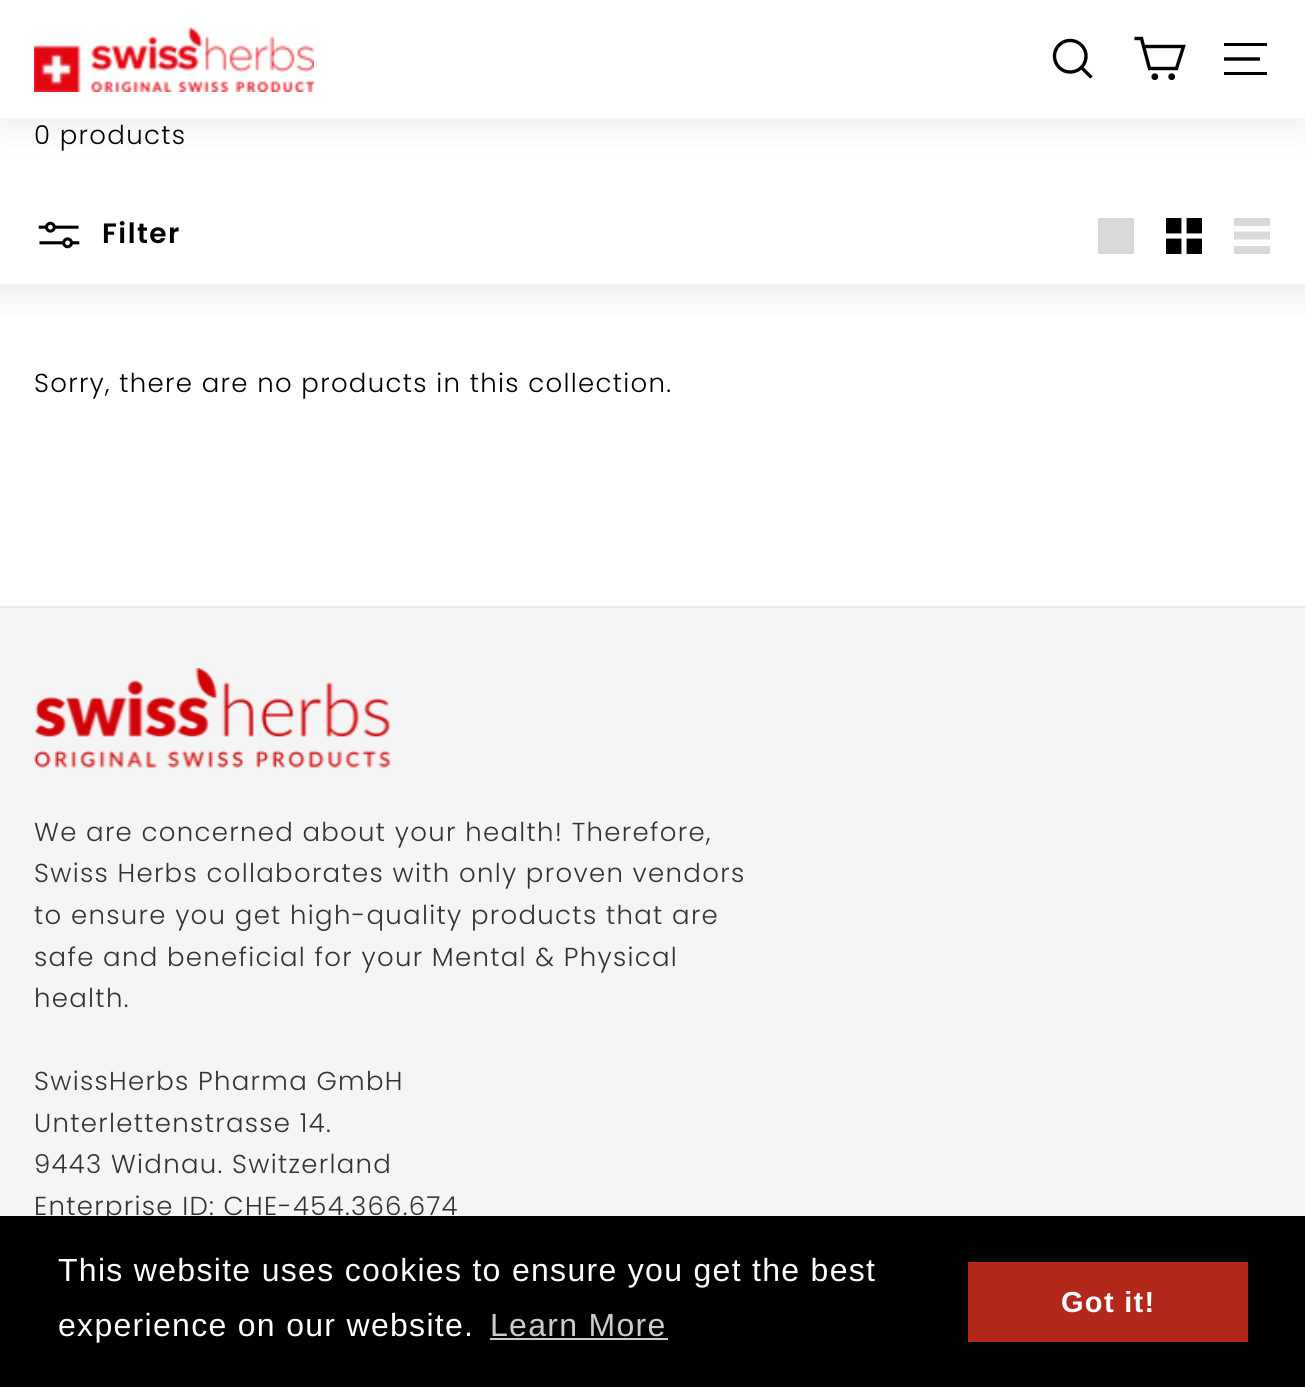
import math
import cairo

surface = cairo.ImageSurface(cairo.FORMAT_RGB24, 1305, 1387)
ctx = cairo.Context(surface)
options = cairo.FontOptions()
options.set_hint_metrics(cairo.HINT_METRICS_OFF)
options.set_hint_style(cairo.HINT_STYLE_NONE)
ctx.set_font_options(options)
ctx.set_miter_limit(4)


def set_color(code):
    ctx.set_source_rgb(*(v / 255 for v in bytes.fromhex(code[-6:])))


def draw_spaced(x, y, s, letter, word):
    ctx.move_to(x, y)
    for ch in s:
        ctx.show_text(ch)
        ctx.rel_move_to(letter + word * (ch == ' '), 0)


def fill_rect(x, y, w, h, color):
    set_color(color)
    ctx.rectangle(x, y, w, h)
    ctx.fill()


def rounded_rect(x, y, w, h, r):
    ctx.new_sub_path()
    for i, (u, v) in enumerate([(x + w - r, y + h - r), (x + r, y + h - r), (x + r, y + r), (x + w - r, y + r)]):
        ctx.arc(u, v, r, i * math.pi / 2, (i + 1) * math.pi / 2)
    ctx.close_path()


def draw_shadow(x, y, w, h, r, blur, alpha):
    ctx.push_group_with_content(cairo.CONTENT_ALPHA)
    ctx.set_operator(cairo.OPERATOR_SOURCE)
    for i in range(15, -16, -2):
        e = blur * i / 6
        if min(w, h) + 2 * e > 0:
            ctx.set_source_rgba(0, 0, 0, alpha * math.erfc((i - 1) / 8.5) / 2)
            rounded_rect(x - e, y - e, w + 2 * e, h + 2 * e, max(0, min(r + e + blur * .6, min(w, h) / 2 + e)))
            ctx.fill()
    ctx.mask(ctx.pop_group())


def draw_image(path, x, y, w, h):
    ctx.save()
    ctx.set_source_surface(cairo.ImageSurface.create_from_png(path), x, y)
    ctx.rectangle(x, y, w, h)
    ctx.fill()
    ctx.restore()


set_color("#ffffff")
ctx.paint()
set_color("#000000")
draw_shadow(0, 0, 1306, 118, 0, 25, 0.1)
fill_rect(0, 0, 1305, 118, "#ffffff")
draw_image("assets/img1.png", 34, 27, 280, 65)
ctx.new_path()
ctx.move_to(1086, 56)
ctx.curve_to(1086, 65, 1079, 72, 1070, 72)
ctx.curve_to(1061.5, 72, 1054.5, 65, 1054.5, 56)
ctx.curve_to(1054.5, 47.5, 1061.5, 40.5, 1070, 40.5)
ctx.curve_to(1079, 40.5, 1086, 47.5, 1086, 56)
ctx.close_path()
ctx.move_to(1091.5, 77.5)
ctx.line_to(1081.5, 67.5)
set_color("#000000")
ctx.set_line_width(3.4)
ctx.stroke()
ctx.new_path()
ctx.move_to(1144, 46.5)
ctx.line_to(1183.5, 46.5)
ctx.line_to(1176.5, 68.5)
ctx.line_to(1149.5, 68.5)
ctx.line_to(1141.5, 38.5)
ctx.line_to(1134.5, 38.5)
ctx.stroke()
ctx.arc(1154.8, 76.7, 1.7, 0, 2 * math.pi)
ctx.stroke()
ctx.arc(1171.7, 76.7, 1.7, 0, 2 * math.pi)
ctx.stroke()
fill_rect(1224, 43, 43, 3, "#000000")
ctx.new_path()
ctx.move_to(1224, 59)
ctx.line_to(1260, 59)
ctx.stroke()
fill_rect(1224, 72, 43, 3, "#000000")
ctx.select_font_face("Poppins Light")
ctx.set_font_size(26)
draw_spaced(34, 144, "0 products", 1.3, 0)
draw_image("assets/img2.png", 38, 221, 42, 28)
ctx.select_font_face("Poppins SemiBold")
ctx.set_font_size(28)
draw_spaced(102, 243, "Filter", 1.5, 0)
fill_rect(1098, 218, 36, 36, "#d9d9d9")
draw_image("assets/img3.png", 1166, 218, 36, 36)
ctx.new_path()
ctx.move_to(1234, 218)
ctx.line_to(1270, 218)
ctx.line_to(1270, 226)
ctx.line_to(1234, 226)
ctx.close_path()
ctx.move_to(1234, 231.5)
ctx.line_to(1270, 231.5)
ctx.line_to(1270, 239.5)
ctx.line_to(1234, 239.5)
ctx.close_path()
ctx.move_to(1234, 246)
ctx.line_to(1270, 246)
ctx.line_to(1270, 254)
ctx.line_to(1234, 254)
ctx.close_path()
ctx.fill()
gradient = cairo.LinearGradient(653, 284, 653, 324)
gradient.add_color_stop_rgba(0, 0.949, 0.949, 0.949, 1)
gradient.add_color_stop_rgba(1, 1, 1, 1, 1)
ctx.set_source(gradient)
ctx.rectangle(0, 284, 1305, 32)
ctx.fill()
ctx.select_font_face("Poppins Light")
ctx.set_font_size(26)
set_color("#000000")
draw_spaced(34, 392, "Sorry, there are no products in this collection.", 1.3, 0)
fill_rect(0, 608, 1305, 608, "#f5f5f5")
fill_rect(0, 606, 1305, 2, "#e9eaec")
draw_image("assets/img4.png", 34, 668, 357, 100)
set_color("#333333")
draw_spaced(34, 841, "We are concerned about your health! Therefore,", 1.3, 0)
draw_spaced(34, 882, "Swiss Herbs collaborates with only proven vendors", 1.3, 0)
draw_spaced(34, 924, "to ensure you get high-quality products that are", 1.3, 0)
draw_spaced(34, 966, "safe and beneficial for your Mental & Physical", 1.3, 0)
draw_spaced(34, 1007, "health.", 1.3, 0)
draw_spaced(34, 1090, "SwissHerbs Pharma GmbH", 1.3, 0)
draw_spaced(34, 1132, "Unterlettenstrasse 14.", 1.3, 0)
draw_spaced(34, 1173, "9443 Widnau. Switzerland", 1.3, 0)
draw_spaced(34, 1215, "Enterprise ID: CHE-454.366.674", 1.3, 0)
fill_rect(0, 1216, 1305, 171, "#000000")
ctx.select_font_face("Liberation Sans")
ctx.set_font_size(32)
set_color("#ffffff")
draw_spaced(58, 1281, "This website uses cookies to ensure you get the best", 1.3, 0)
draw_spaced(58, 1336, "experience on our website.", 1.3, 0)
set_color("#cccccc")
draw_spaced(490, 1336, "Learn More", 1.3, 0)
fill_rect(490, 1338, 178, 2, "#cccccc")
fill_rect(968, 1262, 280, 80, "#b2281b")
ctx.select_font_face("Liberation Sans", cairo.FONT_SLANT_NORMAL, cairo.FONT_WEIGHT_BOLD)
ctx.set_font_size(29)
set_color("#ffffff")
draw_spaced(1061, 1312, "Got it!", 1.3, 0)
surface.write_to_png("output.png")
